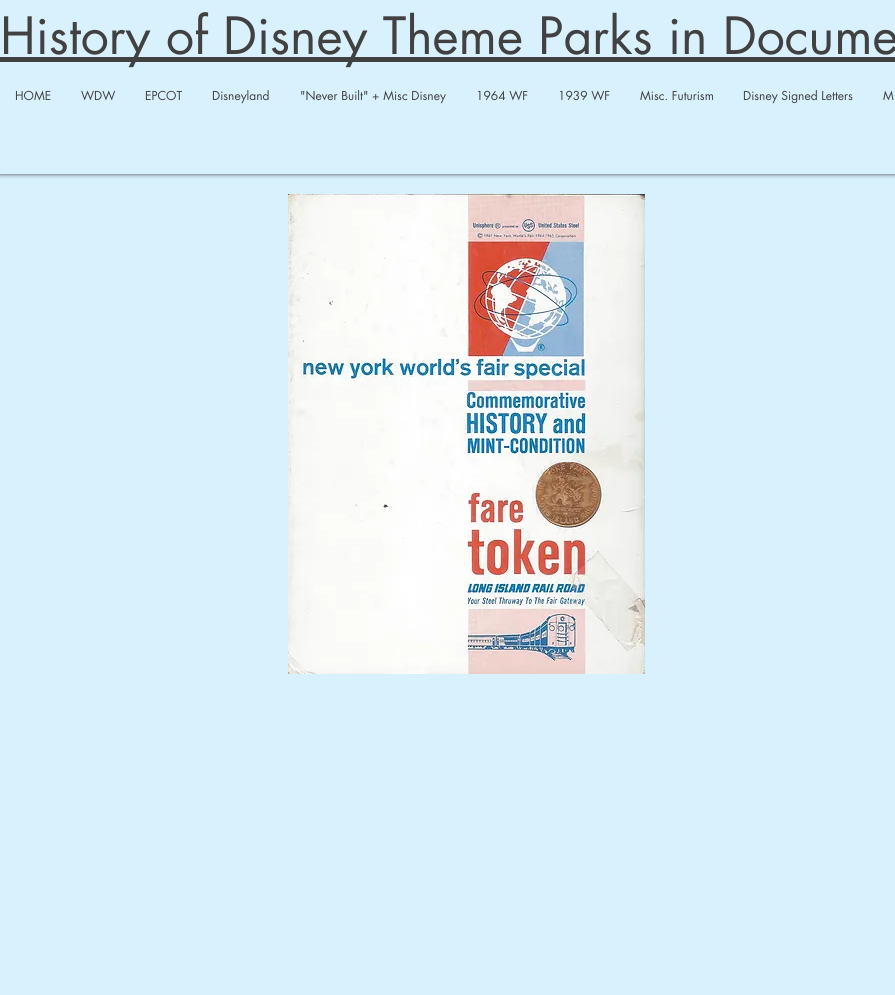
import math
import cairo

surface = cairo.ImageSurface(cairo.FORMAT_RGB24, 895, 995)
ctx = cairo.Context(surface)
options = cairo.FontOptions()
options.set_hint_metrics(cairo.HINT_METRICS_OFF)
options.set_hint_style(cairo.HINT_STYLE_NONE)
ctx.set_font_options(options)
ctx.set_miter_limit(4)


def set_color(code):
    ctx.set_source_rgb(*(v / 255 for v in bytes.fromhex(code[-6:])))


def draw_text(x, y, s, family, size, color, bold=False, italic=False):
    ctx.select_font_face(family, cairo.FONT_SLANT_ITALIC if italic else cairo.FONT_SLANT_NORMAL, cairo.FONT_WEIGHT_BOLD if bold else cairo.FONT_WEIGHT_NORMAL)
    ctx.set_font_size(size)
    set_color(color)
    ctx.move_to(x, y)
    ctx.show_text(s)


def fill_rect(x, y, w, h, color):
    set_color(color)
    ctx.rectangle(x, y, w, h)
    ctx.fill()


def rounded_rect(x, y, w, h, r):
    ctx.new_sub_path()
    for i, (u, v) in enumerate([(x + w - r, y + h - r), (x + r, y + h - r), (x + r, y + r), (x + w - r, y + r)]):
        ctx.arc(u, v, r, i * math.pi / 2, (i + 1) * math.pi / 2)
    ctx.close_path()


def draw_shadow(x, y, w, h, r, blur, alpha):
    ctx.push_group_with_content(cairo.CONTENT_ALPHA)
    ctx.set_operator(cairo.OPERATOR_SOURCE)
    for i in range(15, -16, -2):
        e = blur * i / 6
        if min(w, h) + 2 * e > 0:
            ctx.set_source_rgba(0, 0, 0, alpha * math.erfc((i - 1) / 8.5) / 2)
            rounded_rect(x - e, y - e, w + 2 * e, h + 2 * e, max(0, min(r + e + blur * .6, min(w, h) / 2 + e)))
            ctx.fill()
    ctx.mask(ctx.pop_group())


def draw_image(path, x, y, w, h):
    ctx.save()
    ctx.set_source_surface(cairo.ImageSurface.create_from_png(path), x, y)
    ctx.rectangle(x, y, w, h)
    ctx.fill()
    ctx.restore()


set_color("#d9f0fd")
ctx.paint()
ctx.save()
ctx.rectangle(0, 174, 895, 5)
ctx.clip()
set_color("#000000")
draw_shadow(0, 0, 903, 174, 0, 2.5, 0.7)
ctx.restore()
fill_rect(0, 57, 895, 5, "#414141")
draw_text(0, 54, "History of Disney Theme Parks in Docume", "futura", 50, "#414141")
draw_text(15, 100, "HOME", "futura", 12, "#414141")
draw_text(81, 100, "WDW", "futura", 12, "#414141")
draw_text(145, 100, "EPCOT", "futura", 12, "#414141")
draw_text(212, 100, "Disneyland", "futura", 12, "#414141")
draw_text(300, 100, "\"Never Built\" + Misc Disney", "futura", 12, "#414141")
draw_text(476, 100, "1964 WF", "futura", 12, "#414141")
draw_text(558, 100, "1939 WF", "futura", 12, "#414141")
draw_text(640, 100, "Misc. Futurism", "futura", 12, "#414141")
draw_text(743, 100, "Disney Signed Letters", "futura", 12, "#414141")
draw_text(883, 100, "M", "futura", 12, "#414141")
draw_image("assets/img1.png", 288, 194, 357, 480)
surface.write_to_png("output.png")
